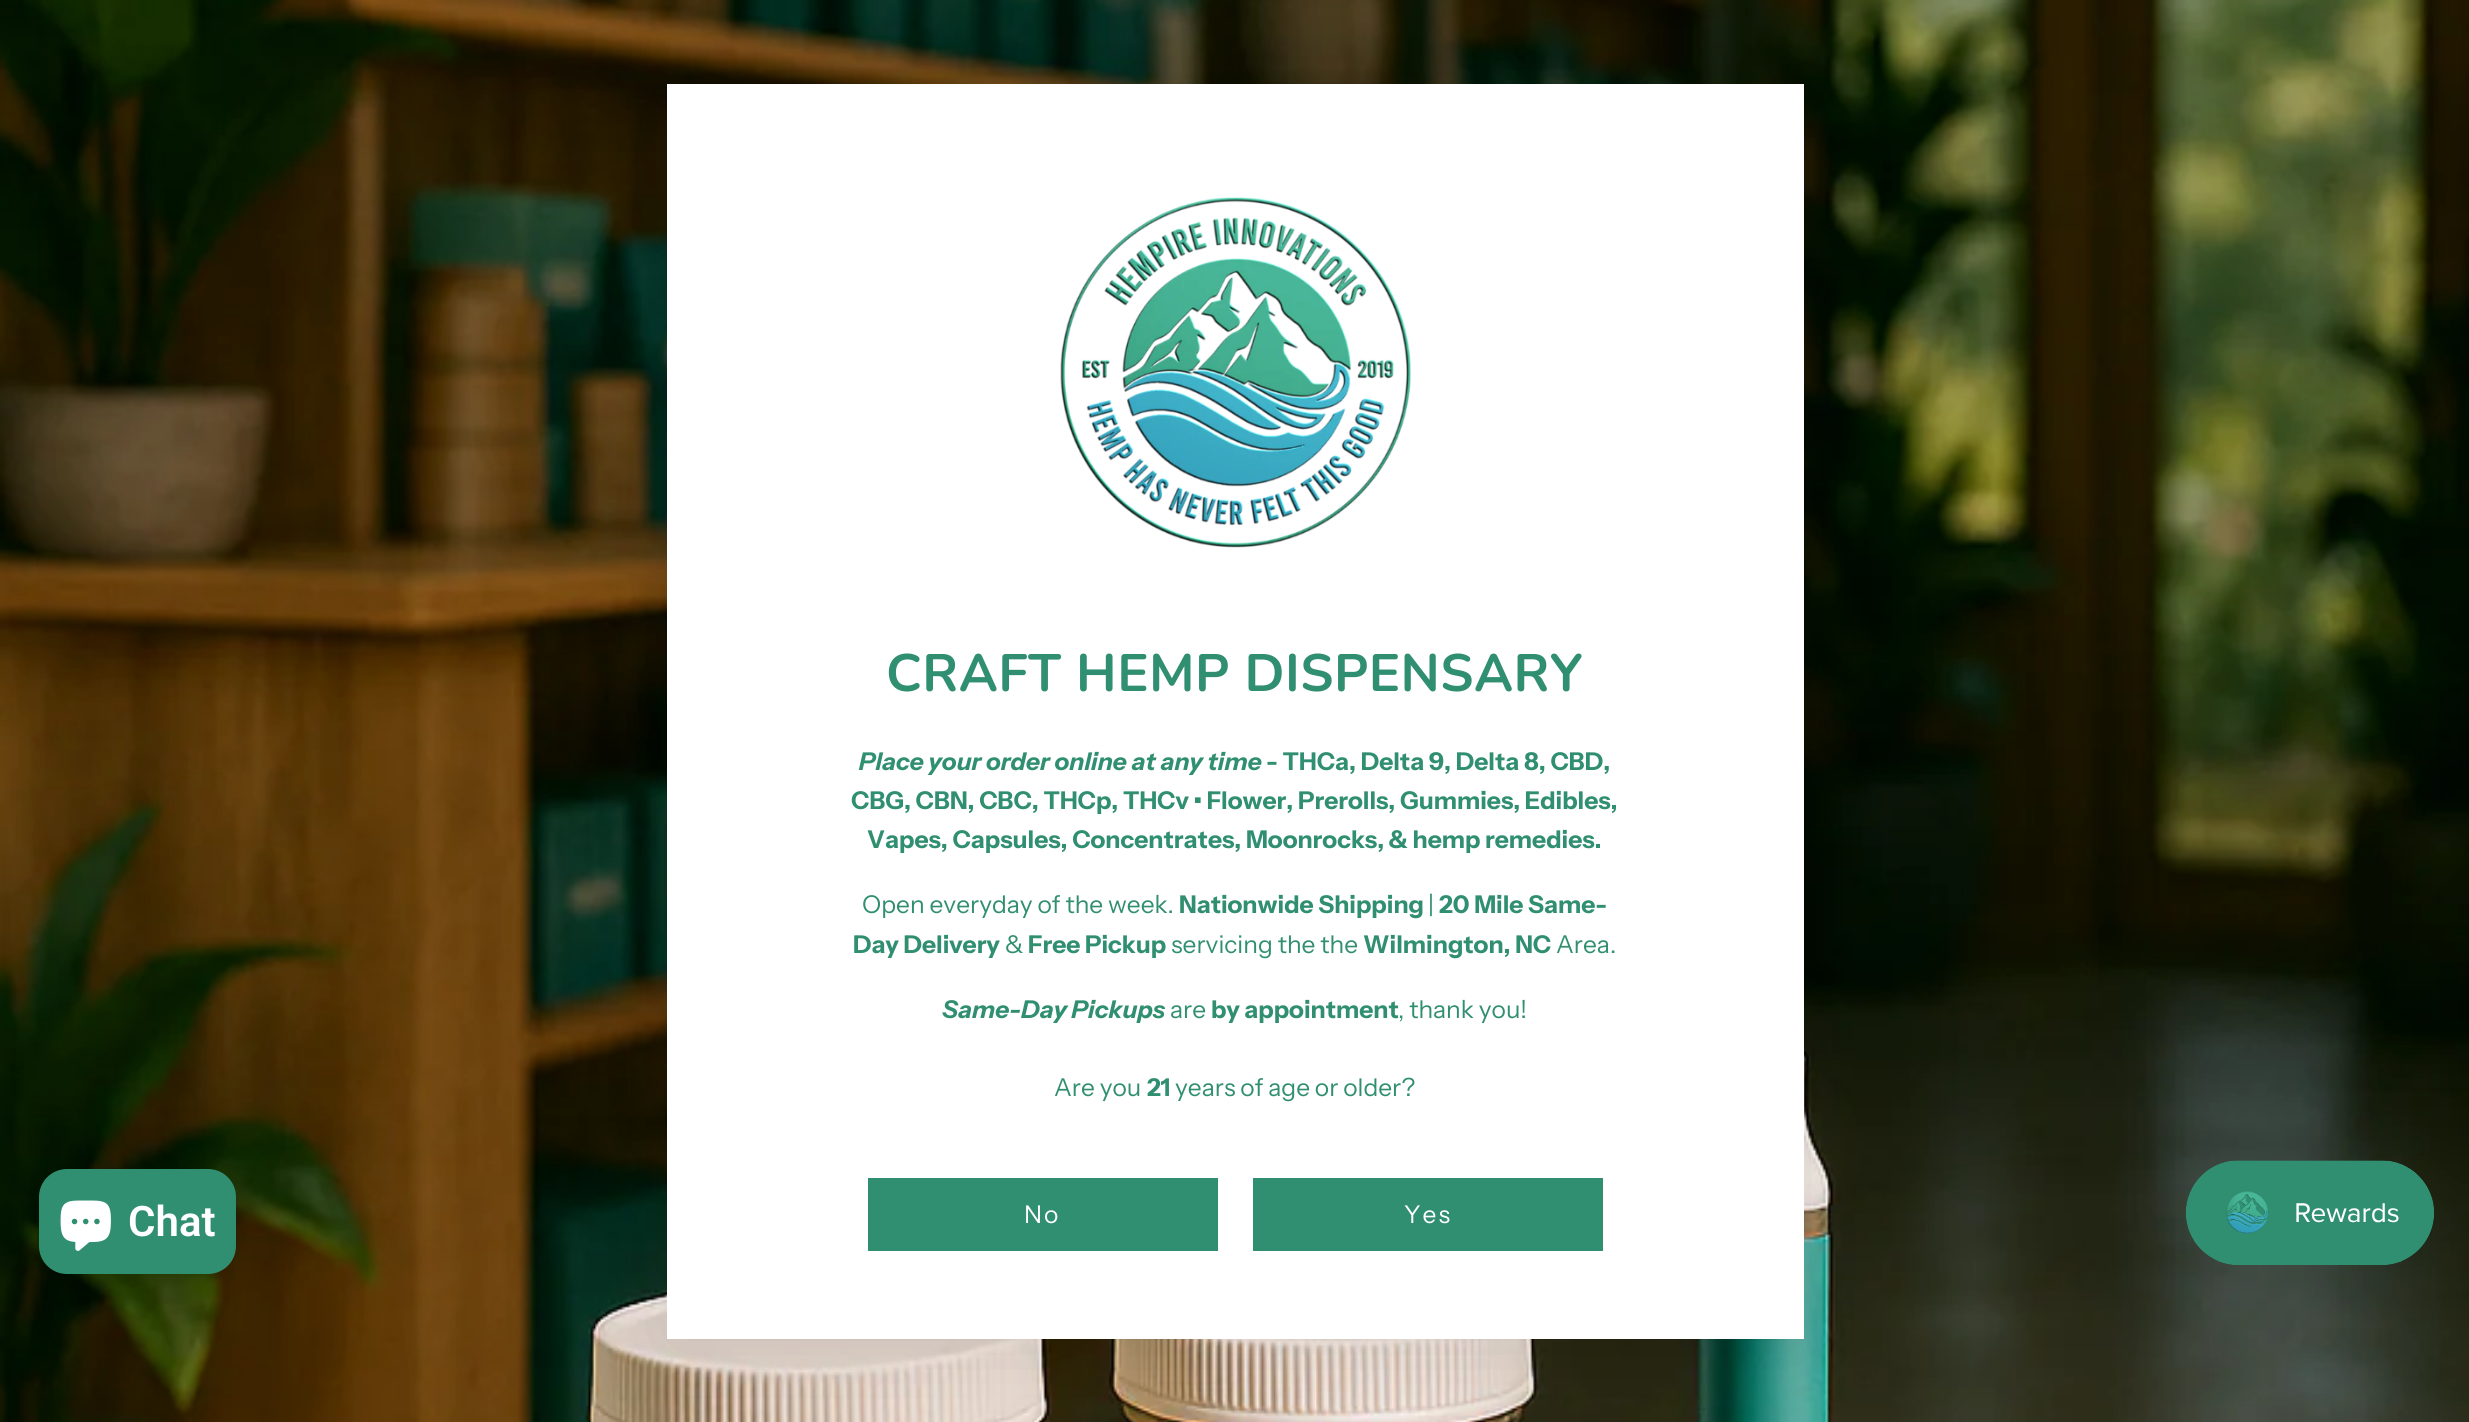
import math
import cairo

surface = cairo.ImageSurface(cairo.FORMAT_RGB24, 2469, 1422)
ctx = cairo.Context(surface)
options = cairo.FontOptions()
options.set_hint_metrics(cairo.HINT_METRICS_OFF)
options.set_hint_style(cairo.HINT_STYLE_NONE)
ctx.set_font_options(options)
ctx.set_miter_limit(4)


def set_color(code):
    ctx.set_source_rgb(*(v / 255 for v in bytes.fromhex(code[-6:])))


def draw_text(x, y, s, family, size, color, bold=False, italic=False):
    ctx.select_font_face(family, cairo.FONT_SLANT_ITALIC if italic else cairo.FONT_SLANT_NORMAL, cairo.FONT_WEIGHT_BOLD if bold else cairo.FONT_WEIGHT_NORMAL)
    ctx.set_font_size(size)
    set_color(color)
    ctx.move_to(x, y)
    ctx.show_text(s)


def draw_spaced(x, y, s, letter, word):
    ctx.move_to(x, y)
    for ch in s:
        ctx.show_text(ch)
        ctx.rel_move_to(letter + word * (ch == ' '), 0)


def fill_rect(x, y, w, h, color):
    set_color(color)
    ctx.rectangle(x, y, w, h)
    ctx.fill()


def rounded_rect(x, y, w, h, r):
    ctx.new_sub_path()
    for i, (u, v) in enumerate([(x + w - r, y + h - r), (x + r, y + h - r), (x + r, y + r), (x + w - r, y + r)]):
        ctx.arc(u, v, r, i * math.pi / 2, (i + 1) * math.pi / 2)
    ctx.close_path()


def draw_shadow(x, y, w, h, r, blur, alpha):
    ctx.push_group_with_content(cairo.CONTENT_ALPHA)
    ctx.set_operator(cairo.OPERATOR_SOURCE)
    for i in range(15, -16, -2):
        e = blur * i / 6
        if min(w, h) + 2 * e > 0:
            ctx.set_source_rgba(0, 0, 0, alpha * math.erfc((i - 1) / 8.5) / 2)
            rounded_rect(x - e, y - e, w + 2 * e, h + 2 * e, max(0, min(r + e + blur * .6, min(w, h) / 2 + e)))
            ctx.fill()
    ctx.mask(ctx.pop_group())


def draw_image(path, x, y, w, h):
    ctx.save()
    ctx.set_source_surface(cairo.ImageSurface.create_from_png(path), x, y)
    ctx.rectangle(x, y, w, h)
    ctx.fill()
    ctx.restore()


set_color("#ffffff")
ctx.paint()
draw_image("assets/img2.png", 0, 0, 2469, 1422)
set_color("#318f71")
rounded_rect(39, 1169, 197, 105, 28)
ctx.fill()
draw_image("assets/img1.png", 60, 1200, 51, 51)
draw_text(128, 1236, "Chat", "Roboto SemiBold", 42, "#ffffff")
set_color("#000000")
draw_shadow(667, 93, 1137, 1255, 0, 44, 0.1)
fill_rect(667, 84, 1137, 1255, "#ffffff")
draw_image("assets/img3.png", 1060, 197, 351, 351)
ctx.select_font_face("Nunito", cairo.FONT_SLANT_NORMAL, cairo.FONT_WEIGHT_BOLD)
ctx.set_font_size(52.5)
set_color("#318f71")
draw_spaced(886, 691, "CRAFT HEMP DISPENSARY", 0.5, 0)
draw_text(859, 770, "Place your order online at any time", "Instrument Sans", 24.5, "#318f71", bold=True, italic=True)
draw_text(1266, 770, "- THCa, Delta 9, Delta 8, CBD,", "Instrument Sans", 24.5, "#318f71", bold=True)
draw_text(851, 809, "CBG, CBN, CBC, THCp, THCv • Flower, Prerolls, Gummies, Edibles,", "Instrument Sans", 24.5, "#318f71", bold=True)
draw_text(867, 848, "Vapes, Capsules, Concentrates, Moonrocks, & hemp remedies.", "Instrument Sans", 24.5, "#318f71", bold=True)
draw_text(862, 913, "Open everyday of the week.", "Instrument Sans", 24.5, "#318f71")
draw_text(1179, 913, "Nationwide Shipping", "Instrument Sans", 24.5, "#318f71", bold=True)
draw_text(1428, 913, "|", "Instrument Sans", 24.5, "#318f71")
draw_text(1439, 913, "20 Mile Same-", "Instrument Sans", 24.5, "#318f71", bold=True)
draw_text(853, 953, "Day Delivery", "Instrument Sans", 24.5, "#318f71", bold=True)
draw_text(1005, 953, "&", "Instrument Sans", 24.5, "#318f71")
draw_text(1028, 953, "Free Pickup", "Instrument Sans", 24.5, "#318f71", bold=True)
draw_text(1171, 953, "servicing the the", "Instrument Sans", 24.5, "#318f71")
draw_text(1363, 953, "Wilmington, NC", "Instrument Sans", 24.5, "#318f71", bold=True)
draw_text(1556, 953, "Area.", "Instrument Sans", 24.5, "#318f71")
draw_text(942, 1018, "Same-Day Pickups", "Instrument Sans", 24.5, "#318f71", bold=True, italic=True)
draw_text(1170, 1018, "are", "Instrument Sans", 24.5, "#318f71")
draw_text(1211, 1018, "by appointment", "Instrument Sans", 24.5, "#318f71", bold=True)
draw_text(1398, 1018, ", thank you!", "Instrument Sans", 24.5, "#318f71")
draw_text(1054, 1096, "Are you", "Instrument Sans", 24.5, "#318f71")
draw_text(1147, 1096, "21", "Instrument Sans", 24.5, "#318f71", bold=True)
draw_text(1175, 1096, "years of age or older?", "Instrument Sans", 24.5, "#318f71")
fill_rect(868, 1178, 350, 73, "#318f71")
set_color("#ffffff")
draw_spaced(1024, 1223, "No", 2, 0)
fill_rect(1253, 1178, 350, 73, "#318f71")
set_color("#ffffff")
draw_spaced(1404, 1223, "Yes", 2, 0)
draw_image("assets/img4.png", 2186, 1160, 248, 105)
surface.write_to_png("output.png")
